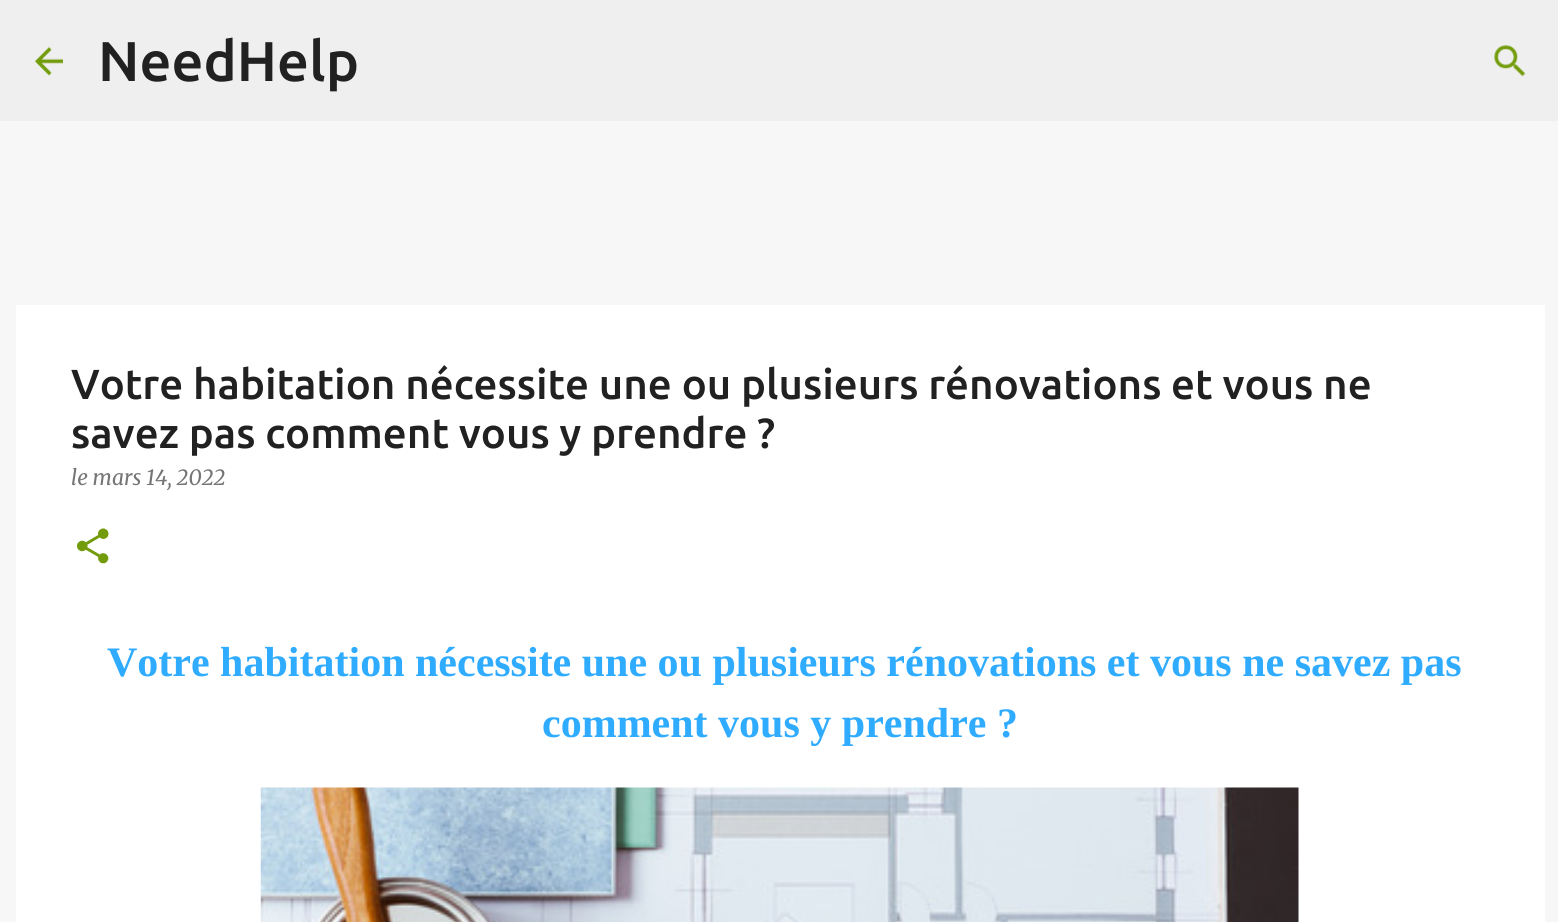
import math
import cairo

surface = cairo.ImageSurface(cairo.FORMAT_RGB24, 1558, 922)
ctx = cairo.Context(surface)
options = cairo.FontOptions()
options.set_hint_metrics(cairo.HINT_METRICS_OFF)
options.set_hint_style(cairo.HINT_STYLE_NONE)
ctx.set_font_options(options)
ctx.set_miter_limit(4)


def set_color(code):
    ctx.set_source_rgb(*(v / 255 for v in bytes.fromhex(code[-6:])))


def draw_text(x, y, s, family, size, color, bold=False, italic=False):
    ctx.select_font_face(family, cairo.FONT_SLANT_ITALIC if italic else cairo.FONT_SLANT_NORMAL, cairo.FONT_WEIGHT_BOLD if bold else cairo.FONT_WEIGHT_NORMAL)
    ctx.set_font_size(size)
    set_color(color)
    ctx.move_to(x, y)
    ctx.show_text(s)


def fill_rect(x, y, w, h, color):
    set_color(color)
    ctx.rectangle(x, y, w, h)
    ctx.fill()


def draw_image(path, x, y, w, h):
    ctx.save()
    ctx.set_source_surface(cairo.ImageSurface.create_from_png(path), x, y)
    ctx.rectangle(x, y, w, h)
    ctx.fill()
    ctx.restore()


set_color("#f7f7f7")
ctx.paint()
fill_rect(0, 0, 1558, 121, "#efefef")
draw_image("assets/img1.png", 35, 46, 28, 30)
draw_text(98, 81, "NeedHelp", "Ubuntu Medium", 56, "#212121")
draw_image("assets/img2.png", 1494, 45, 32, 32)
fill_rect(16, 305, 1529, 617, "#ffffff")
draw_text(71, 399, "Votre habitation nécessite une ou plusieurs rénovations et vous ne", "Ubuntu Medium", 42, "#212121")
draw_text(71, 448, "savez pas comment vous y prendre ?", "Ubuntu Medium", 42, "#212121")
draw_text(71, 485, "le mars 14, 2022", "Merriweather", 21, "#757575", italic=True)
draw_image("assets/img3.png", 77, 528, 32, 36)
draw_text(107, 676, "Votre habitation nécessite une ou plusieurs rénovations et vous ne savez pas", "Liberation Serif", 42, "#2fabff", bold=True)
draw_text(542, 737, "comment vous y prendre ?", "Liberation Serif", 42, "#2fabff", bold=True)
draw_image("assets/img4.png", 260, 787, 1039, 135)
surface.write_to_png("output.png")
